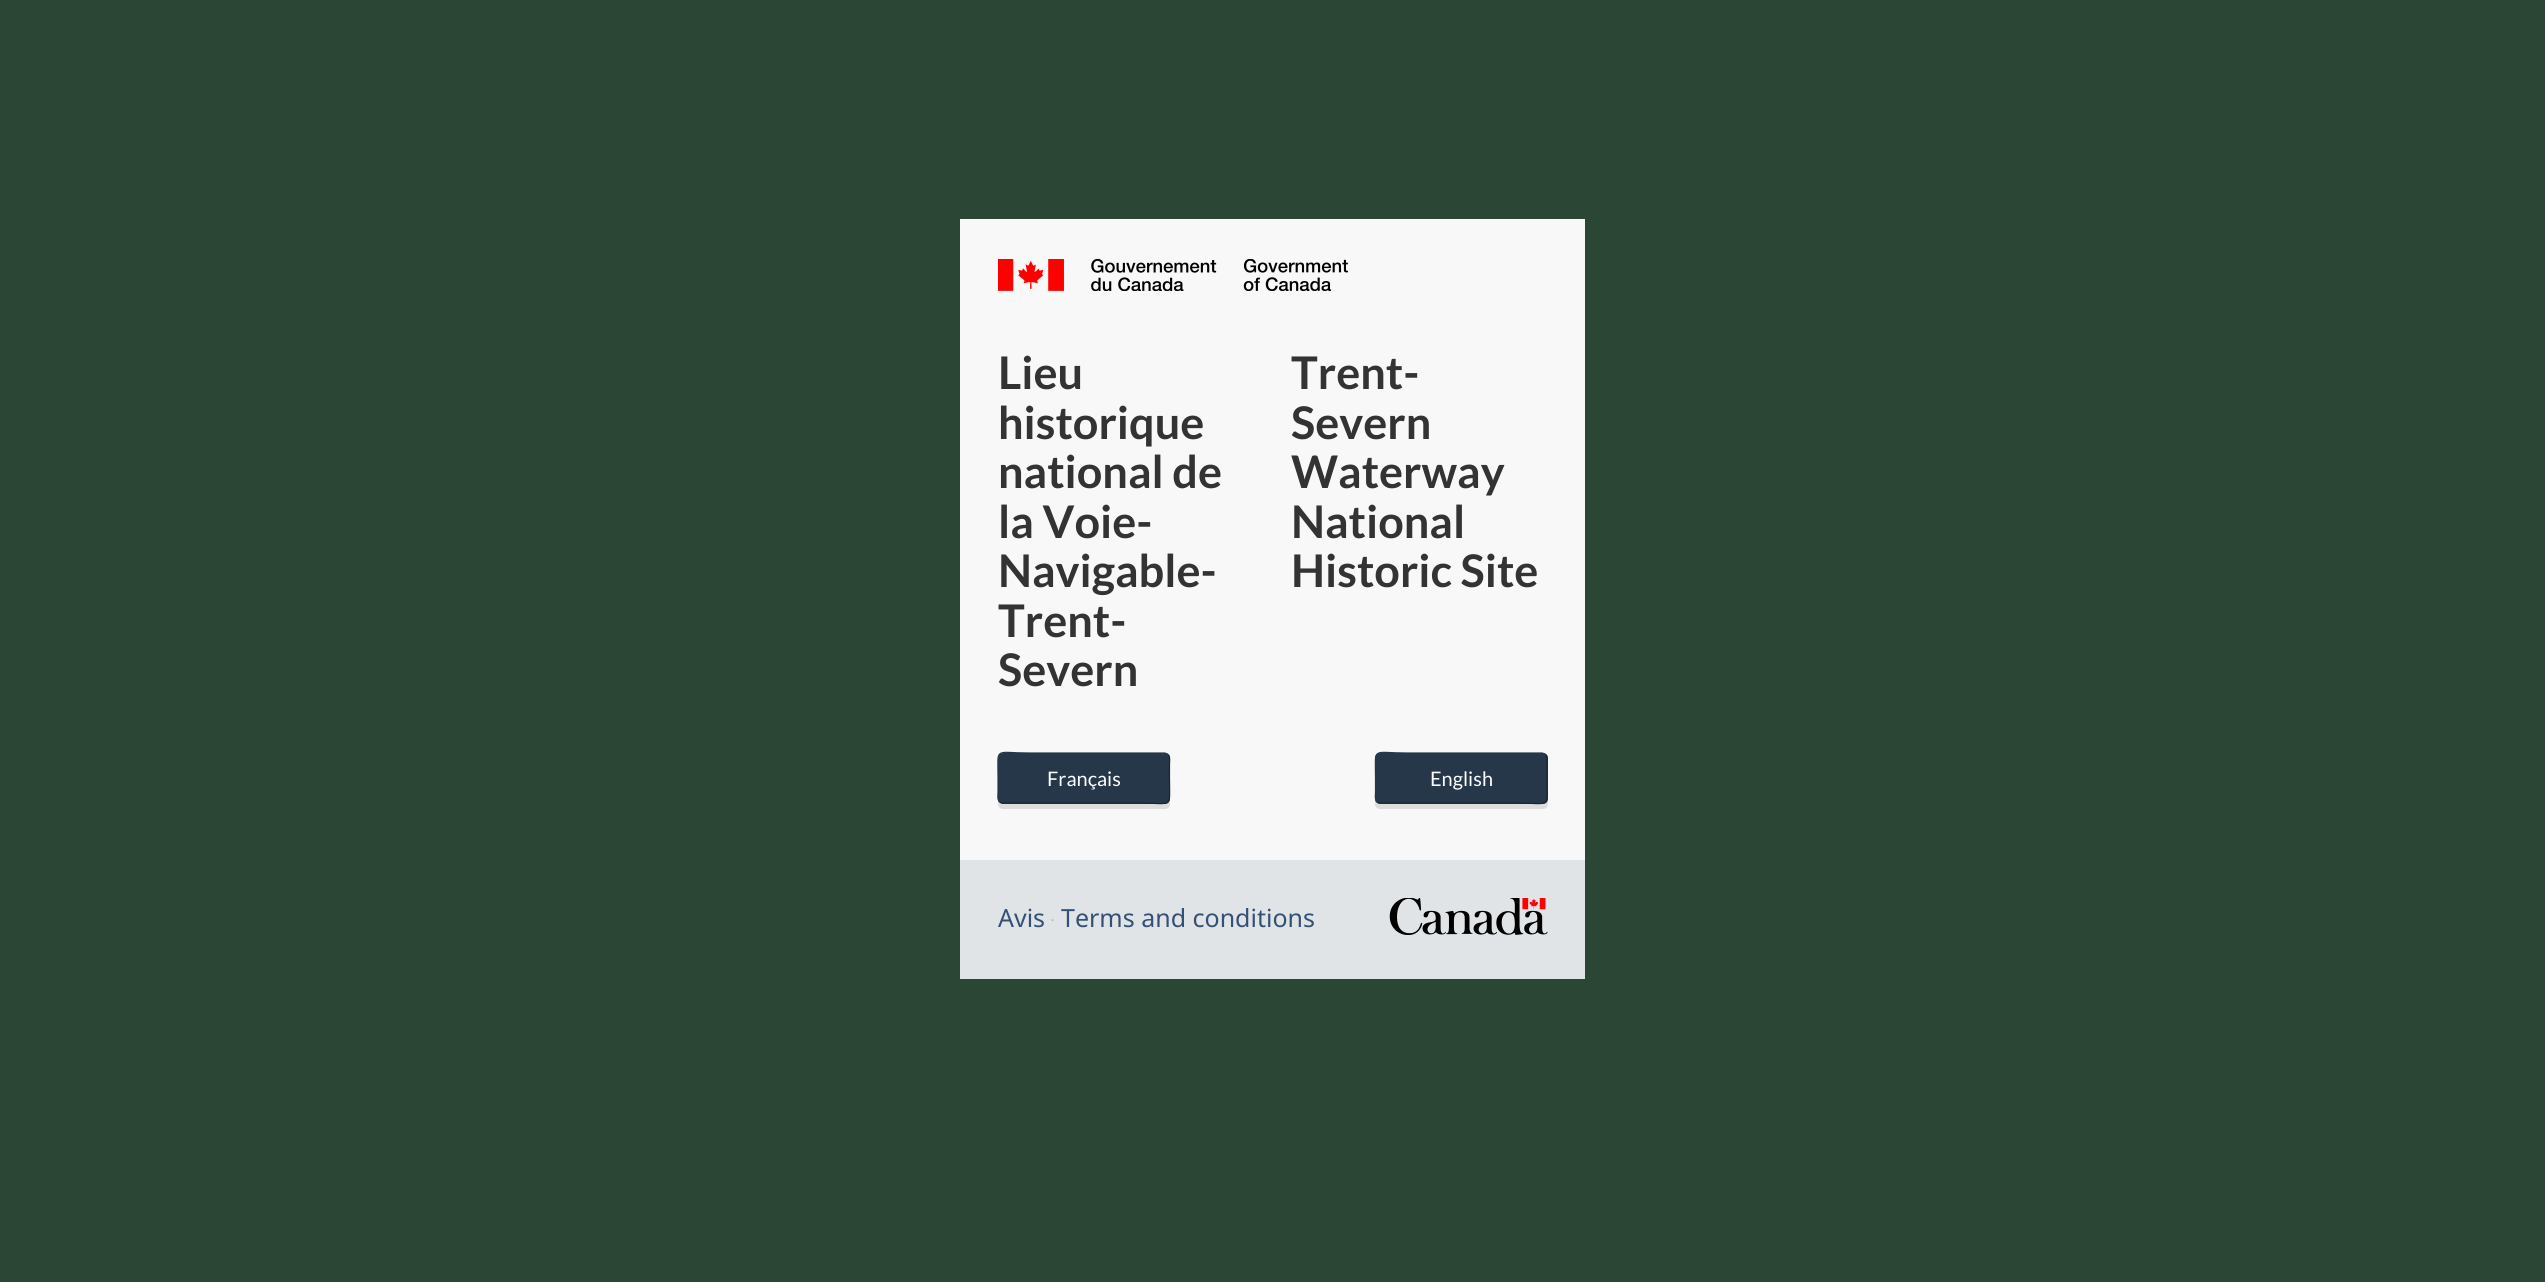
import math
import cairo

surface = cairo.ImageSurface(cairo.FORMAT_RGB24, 2545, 1282)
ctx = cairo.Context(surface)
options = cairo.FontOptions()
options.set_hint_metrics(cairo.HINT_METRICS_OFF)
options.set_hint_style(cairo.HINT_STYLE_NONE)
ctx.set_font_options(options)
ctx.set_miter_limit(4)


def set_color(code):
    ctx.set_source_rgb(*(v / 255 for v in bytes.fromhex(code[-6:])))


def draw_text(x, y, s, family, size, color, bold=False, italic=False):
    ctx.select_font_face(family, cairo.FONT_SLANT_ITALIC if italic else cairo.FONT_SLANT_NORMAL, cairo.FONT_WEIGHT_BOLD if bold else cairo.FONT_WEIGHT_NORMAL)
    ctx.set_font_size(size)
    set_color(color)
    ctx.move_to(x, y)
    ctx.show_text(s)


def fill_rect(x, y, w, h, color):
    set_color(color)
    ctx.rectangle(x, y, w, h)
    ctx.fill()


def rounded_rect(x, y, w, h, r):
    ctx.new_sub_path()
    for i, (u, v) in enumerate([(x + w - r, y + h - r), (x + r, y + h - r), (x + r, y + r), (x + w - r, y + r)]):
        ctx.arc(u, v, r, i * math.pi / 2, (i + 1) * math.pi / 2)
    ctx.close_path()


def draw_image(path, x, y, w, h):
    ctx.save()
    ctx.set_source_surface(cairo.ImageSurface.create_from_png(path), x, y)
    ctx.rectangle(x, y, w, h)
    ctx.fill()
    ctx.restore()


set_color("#2b4635")
ctx.paint()
fill_rect(960, 219, 625, 641, "#f8f8f8")
draw_image("assets/img1.png", 998, 259, 350, 32)
draw_text(998, 389, "Lieu", "Lato", 45, "#333333", bold=True)
draw_text(998, 439, "historique", "Lato", 45, "#333333", bold=True)
draw_text(998, 488, "national de", "Lato", 45, "#333333", bold=True)
draw_text(998, 538, "la Voie-", "Lato", 45, "#333333", bold=True)
draw_text(998, 587, "Navigable-", "Lato", 45, "#333333", bold=True)
draw_text(998, 637, "Trent-", "Lato", 45, "#333333", bold=True)
draw_text(998, 686, "Severn", "Lato", 45, "#333333", bold=True)
draw_text(1291, 389, "Trent-", "Lato", 45, "#333333", bold=True)
draw_text(1291, 439, "Severn", "Lato", 45, "#333333", bold=True)
draw_text(1291, 488, "Waterway", "Lato", 45, "#333333", bold=True)
draw_text(1291, 538, "National", "Lato", 45, "#333333", bold=True)
draw_text(1291, 587, "Historic Site", "Lato", 45, "#333333", bold=True)
set_color("#dddddd")
ctx.new_path()
ctx.move_to(998, 801)
ctx.line_to(998, 804)
ctx.curve_to(998, 807, 1000, 809, 1003, 809)
ctx.line_to(1165, 809)
ctx.curve_to(1168, 809, 1170, 807, 1170, 804)
ctx.line_to(1170, 799)
ctx.curve_to(1170, 802, 1168, 804, 1165, 804)
ctx.line_to(1002, 804)
ctx.curve_to(1001, 804, 999, 803, 998, 801)
ctx.close_path()
ctx.fill()
set_color("#26374a")
rounded_rect(998, 753, 172, 51, 5)
ctx.fill()
ctx.new_path()
ctx.move_to(1168, 754.5)
ctx.curve_to(1170.5, 757, 1169.5, 762, 1169.5, 764.5)
ctx.line_to(1169.5, 778)
ctx.curve_to(1169.5, 810, 1174, 803, 1138, 803)
ctx.line_to(1002.5, 803)
ctx.line_to(999.5, 802)
set_color("#192531")
ctx.set_line_width(1.2)
ctx.stroke()
ctx.new_path()
ctx.move_to(999.5, 802)
ctx.curve_to(997, 799.5, 998, 794, 998, 792)
ctx.line_to(998, 778)
ctx.curve_to(998, 746, 993.5, 753, 1029.5, 753)
ctx.line_to(1165, 753)
ctx.line_to(1168, 754.5)
set_color("#26374a")
ctx.stroke()
draw_text(1047, 786, "Français", "Lato", 20, "#ffffff")
set_color("#dddddd")
ctx.new_path()
ctx.move_to(1375, 799)
ctx.line_to(1375, 804)
ctx.curve_to(1375, 807, 1377, 809, 1380, 809)
ctx.line_to(1543, 809)
ctx.curve_to(1546, 809, 1548, 807, 1548, 804)
ctx.line_to(1548, 763)
ctx.line_to(1548, 761)
ctx.line_to(1548, 799)
ctx.curve_to(1548, 802, 1545, 804, 1542, 804)
ctx.line_to(1380, 804)
ctx.curve_to(1377, 804, 1375, 802, 1375, 799)
ctx.close_path()
ctx.fill()
set_color("#26374a")
rounded_rect(1375, 753, 173, 51, 5)
ctx.fill()
ctx.new_path()
ctx.move_to(1545.5, 754.5)
ctx.curve_to(1548, 757, 1547, 762, 1547, 764.5)
ctx.line_to(1547, 778)
ctx.curve_to(1547, 810, 1551.5, 803, 1515.5, 803)
ctx.line_to(1380, 803)
ctx.line_to(1377, 802)
set_color("#192531")
ctx.stroke()
ctx.new_path()
ctx.move_to(1377, 802)
ctx.curve_to(1374.5, 799.5, 1375.5, 794, 1375.5, 792)
ctx.line_to(1375.5, 778)
ctx.curve_to(1375.5, 746, 1371, 753, 1407, 753)
ctx.line_to(1542.5, 753)
ctx.line_to(1545.5, 754.5)
set_color("#26374a")
ctx.stroke()
draw_text(1430, 786, "English", "Lato", 20, "#ffffff")
fill_rect(960, 860, 625, 119, "#e1e4e7")
draw_text(998, 927, "Avis", "Noto Sans", 25, "#335075")
draw_text(1051, 923, "*", "Liberation Serif", 6, "#9e9e9e")
draw_text(1061, 927, "Terms and conditions", "Noto Sans", 25, "#335075")
draw_image("assets/img2.png", 1389, 898, 159, 37)
surface.write_to_png("output.png")
